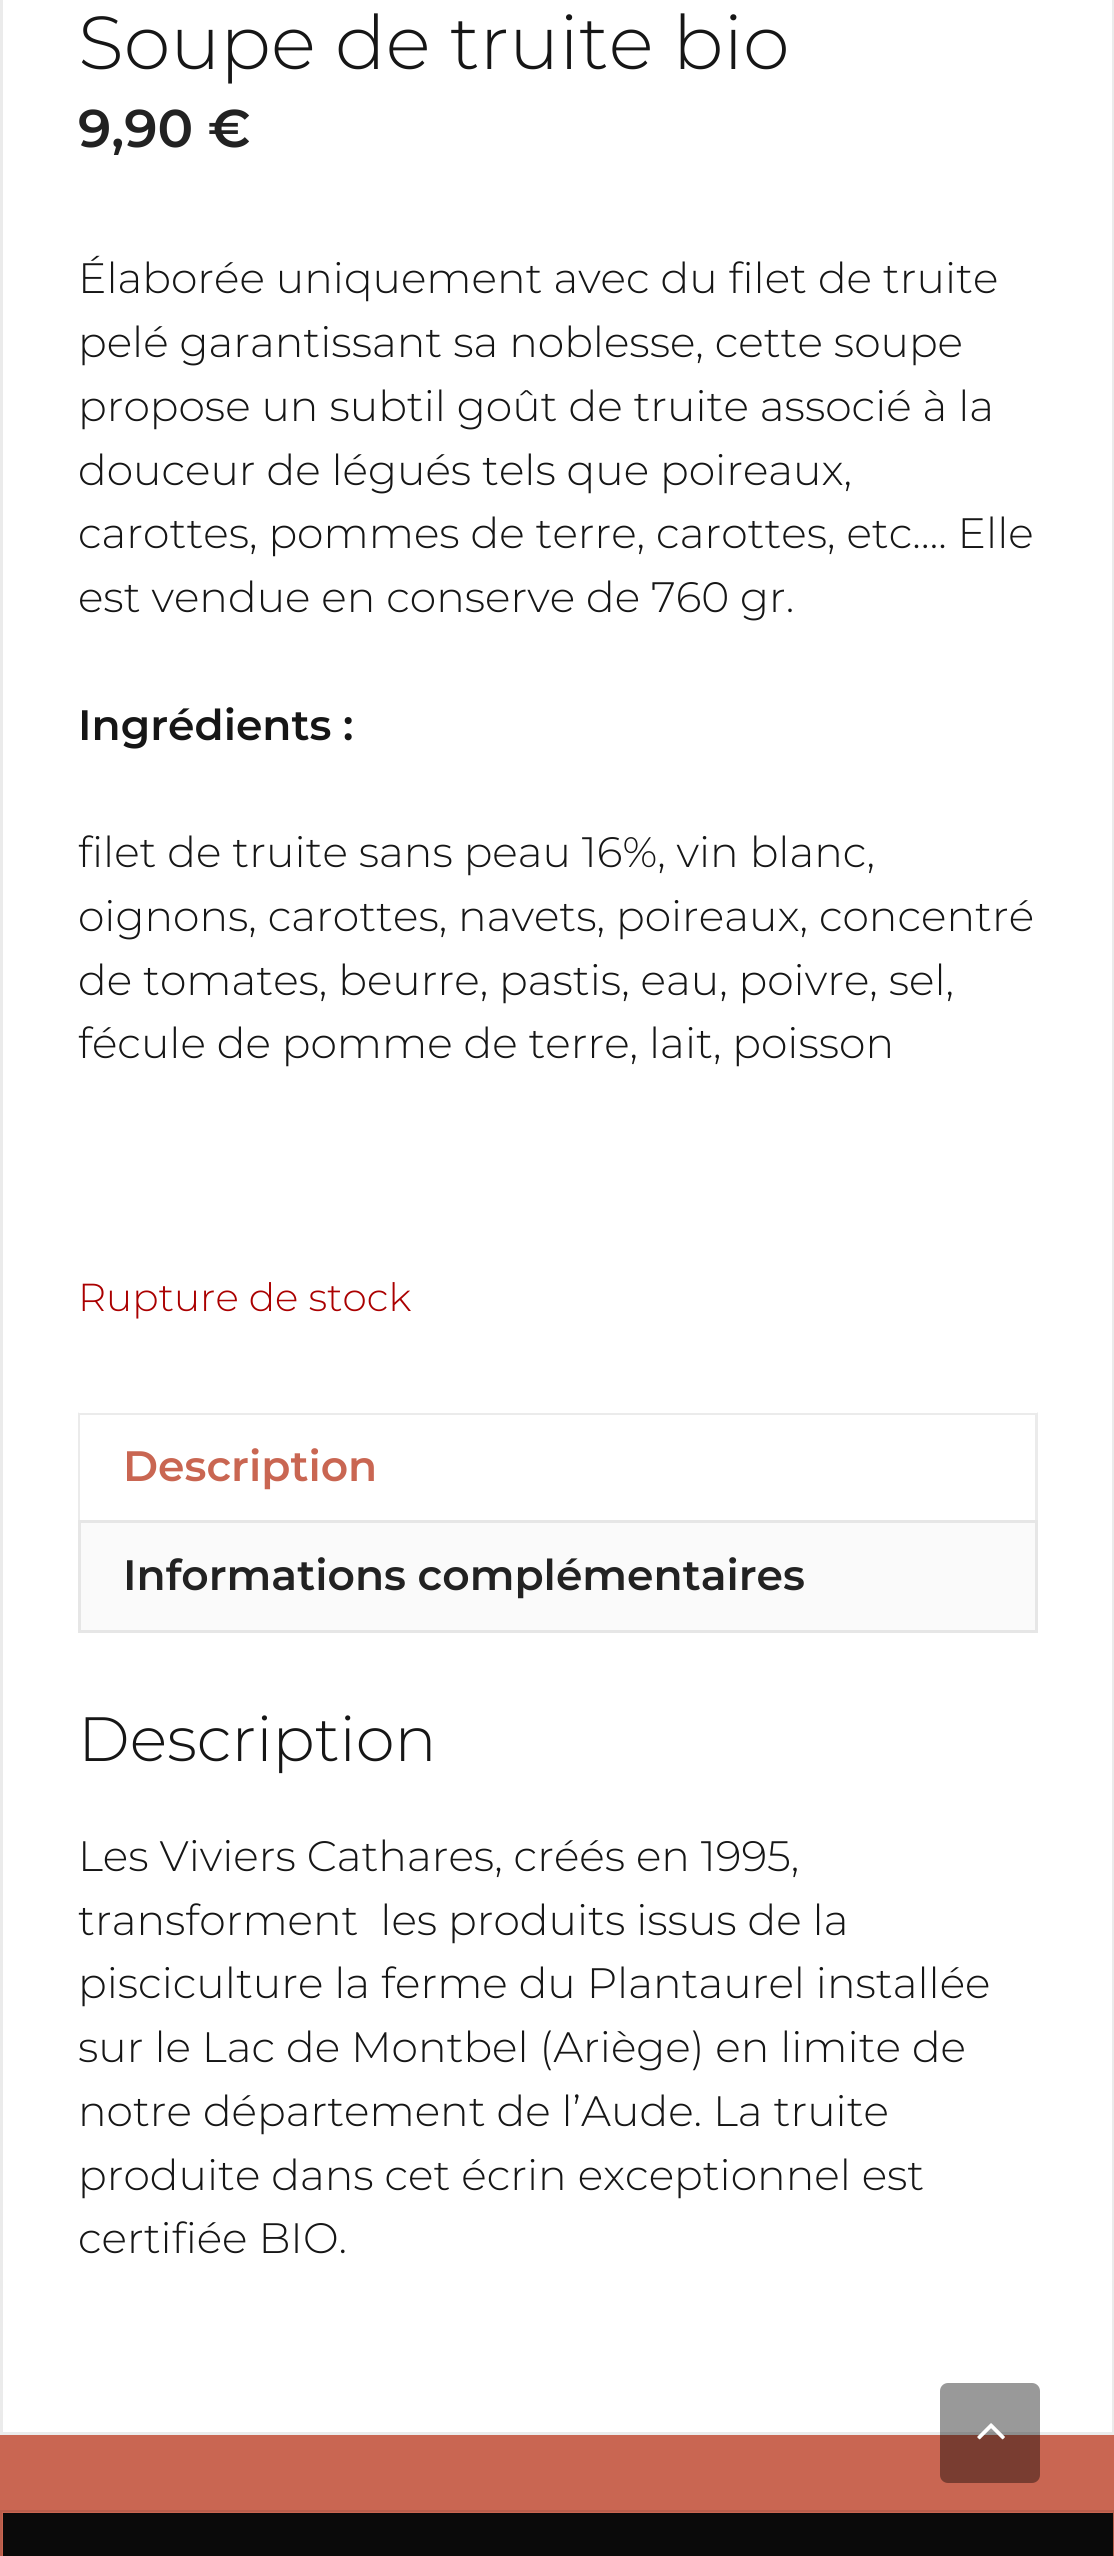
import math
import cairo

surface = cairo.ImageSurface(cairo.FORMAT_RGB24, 1114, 2556)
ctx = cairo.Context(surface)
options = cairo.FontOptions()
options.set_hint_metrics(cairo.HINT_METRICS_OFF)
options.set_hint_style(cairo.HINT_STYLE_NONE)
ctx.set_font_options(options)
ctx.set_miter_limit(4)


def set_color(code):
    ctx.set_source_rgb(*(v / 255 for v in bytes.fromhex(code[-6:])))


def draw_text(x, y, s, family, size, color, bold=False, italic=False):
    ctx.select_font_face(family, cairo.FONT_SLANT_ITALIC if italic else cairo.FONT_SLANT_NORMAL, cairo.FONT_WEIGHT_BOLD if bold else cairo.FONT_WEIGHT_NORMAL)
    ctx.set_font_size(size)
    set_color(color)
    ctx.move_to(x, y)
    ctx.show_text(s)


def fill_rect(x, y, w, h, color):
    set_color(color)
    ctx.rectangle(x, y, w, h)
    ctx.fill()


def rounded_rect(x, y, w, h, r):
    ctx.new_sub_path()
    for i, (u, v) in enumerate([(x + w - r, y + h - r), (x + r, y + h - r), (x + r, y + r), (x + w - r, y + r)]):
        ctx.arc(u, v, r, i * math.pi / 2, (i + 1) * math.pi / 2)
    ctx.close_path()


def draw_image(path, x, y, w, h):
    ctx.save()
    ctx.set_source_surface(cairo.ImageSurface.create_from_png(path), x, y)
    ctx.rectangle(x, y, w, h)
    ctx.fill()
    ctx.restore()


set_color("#c96652")
ctx.paint()
set_color("#ffffff")
ctx.rectangle(1.5, -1.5, 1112, 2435)
ctx.fill_preserve()
set_color("#ebebeb")
ctx.set_line_width(3)
ctx.stroke()
draw_text(78, 69, "Soupe de truite bio", "Montserrat Light", 75, "#161616")
draw_text(78, 147, "9,90 €", "Montserrat SemiBold", 53, "#222222")
draw_text(78, 293, "Élaborée uniquement avec du filet de truite", "Montserrat Light", 42.5, "#161616")
draw_text(78, 357, "pelé garantissant sa noblesse, cette soupe", "Montserrat Light", 42.5, "#161616")
draw_text(78, 421, "propose un subtil goût de truite associé à la", "Montserrat Light", 42.5, "#161616")
draw_text(78, 485, "douceur de légués tels que poireaux,", "Montserrat Light", 42.5, "#161616")
draw_text(78, 548, "carottes, pommes de terre, carottes, etc…. Elle", "Montserrat Light", 42.5, "#161616")
draw_text(78, 612, "est vendue en conserve de 760 gr.", "Montserrat Light", 42.5, "#161616")
draw_text(78, 740, "Ingrédients :", "Montserrat SemiBold", 42.5, "#161616")
draw_text(78, 867, "filet de truite sans peau 16%, vin blanc,", "Montserrat Light", 42.5, "#161616")
draw_text(78, 931, "oignons, carottes, navets, poireaux, concentré", "Montserrat Light", 42.5, "#161616")
draw_text(78, 995, "de tomates, beurre, pastis, eau, poivre, sel,", "Montserrat Light", 42.5, "#161616")
draw_text(78, 1058, "fécule de pomme de terre, lait, poisson", "Montserrat Light", 42.5, "#161616")
draw_text(78, 1311, "Rupture de stock", "Montserrat Light", 39, "#aa0000")
ctx.save()
ctx.rectangle(78, 1413, 960, 220)
ctx.clip()
set_color("#ebebeb")
ctx.new_path()
ctx.move_to(78, 1412)
ctx.line_to(1038, 1412)
ctx.line_to(1035, 1415)
ctx.line_to(80, 1415)
ctx.close_path()
ctx.fill()
ctx.restore()
ctx.set_source_rgba(0, 0, 0, 0.08)
ctx.new_path()
ctx.move_to(1038, 1412)
ctx.line_to(1038, 1520)
ctx.line_to(1035, 1520)
ctx.line_to(1035, 1415)
ctx.close_path()
ctx.fill()
ctx.new_path()
ctx.move_to(78, 1520)
ctx.line_to(78, 1412)
ctx.line_to(80, 1415)
ctx.line_to(80, 1520)
ctx.close_path()
ctx.fill()
draw_text(123, 1481, "Description", "Montserrat SemiBold", 42.5, "#c96652")
set_color("#fafafa")
ctx.rectangle(79.5, 1521.5, 957, 110)
ctx.fill_preserve()
set_color("#e6e6e6")
ctx.stroke()
draw_text(123, 1590, "Informations complémentaires", "Montserrat SemiBold", 42.5, "#222222")
draw_text(78, 1761, "Description", "Montserrat Light", 62.5, "#161616")
draw_text(78, 1871, "Les Viviers Cathares, créés en 1995,", "Montserrat Light", 42.5, "#161616")
draw_text(78, 1935, "transforment  les produits issus de la", "Montserrat Light", 42.5, "#161616")
draw_text(78, 1998, "pisciculture la ferme du Plantaurel installée", "Montserrat Light", 42.5, "#161616")
draw_text(78, 2062, "sur le Lac de Montbel (Ariège) en limite de", "Montserrat Light", 42.5, "#161616")
draw_text(78, 2126, "notre département de l’Aude. La truite", "Montserrat Light", 42.5, "#161616")
draw_text(78, 2190, "produite dans cet écrin exceptionnel est", "Montserrat Light", 42.5, "#161616")
draw_text(78, 2253, "certifiée BIO.", "Montserrat Light", 42.5, "#161616")
ctx.set_source_rgba(0, 0, 0, 0.4)
rounded_rect(940, 2383, 100, 100, 8)
ctx.fill()
draw_image("assets/img1.png", 977, 2423, 28, 17)
set_color("#b95e4b")
ctx.new_path()
ctx.move_to(0, 2510)
ctx.line_to(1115, 2510)
ctx.line_to(1112, 2512)
ctx.line_to(2, 2512)
ctx.close_path()
ctx.fill()
ctx.new_path()
ctx.move_to(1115, 2510)
ctx.line_to(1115, 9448)
ctx.line_to(1112, 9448)
ctx.line_to(1112, 2512)
ctx.close_path()
ctx.fill()
ctx.set_source_rgba(0, 0, 0, 0.08)
ctx.new_path()
ctx.move_to(0, 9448)
ctx.line_to(0, 2510)
ctx.line_to(2, 2512)
ctx.line_to(2, 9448)
ctx.close_path()
ctx.fill()
fill_rect(3, 2513, 1110, 43, "#0a0a0a")
surface.write_to_png("output.png")
